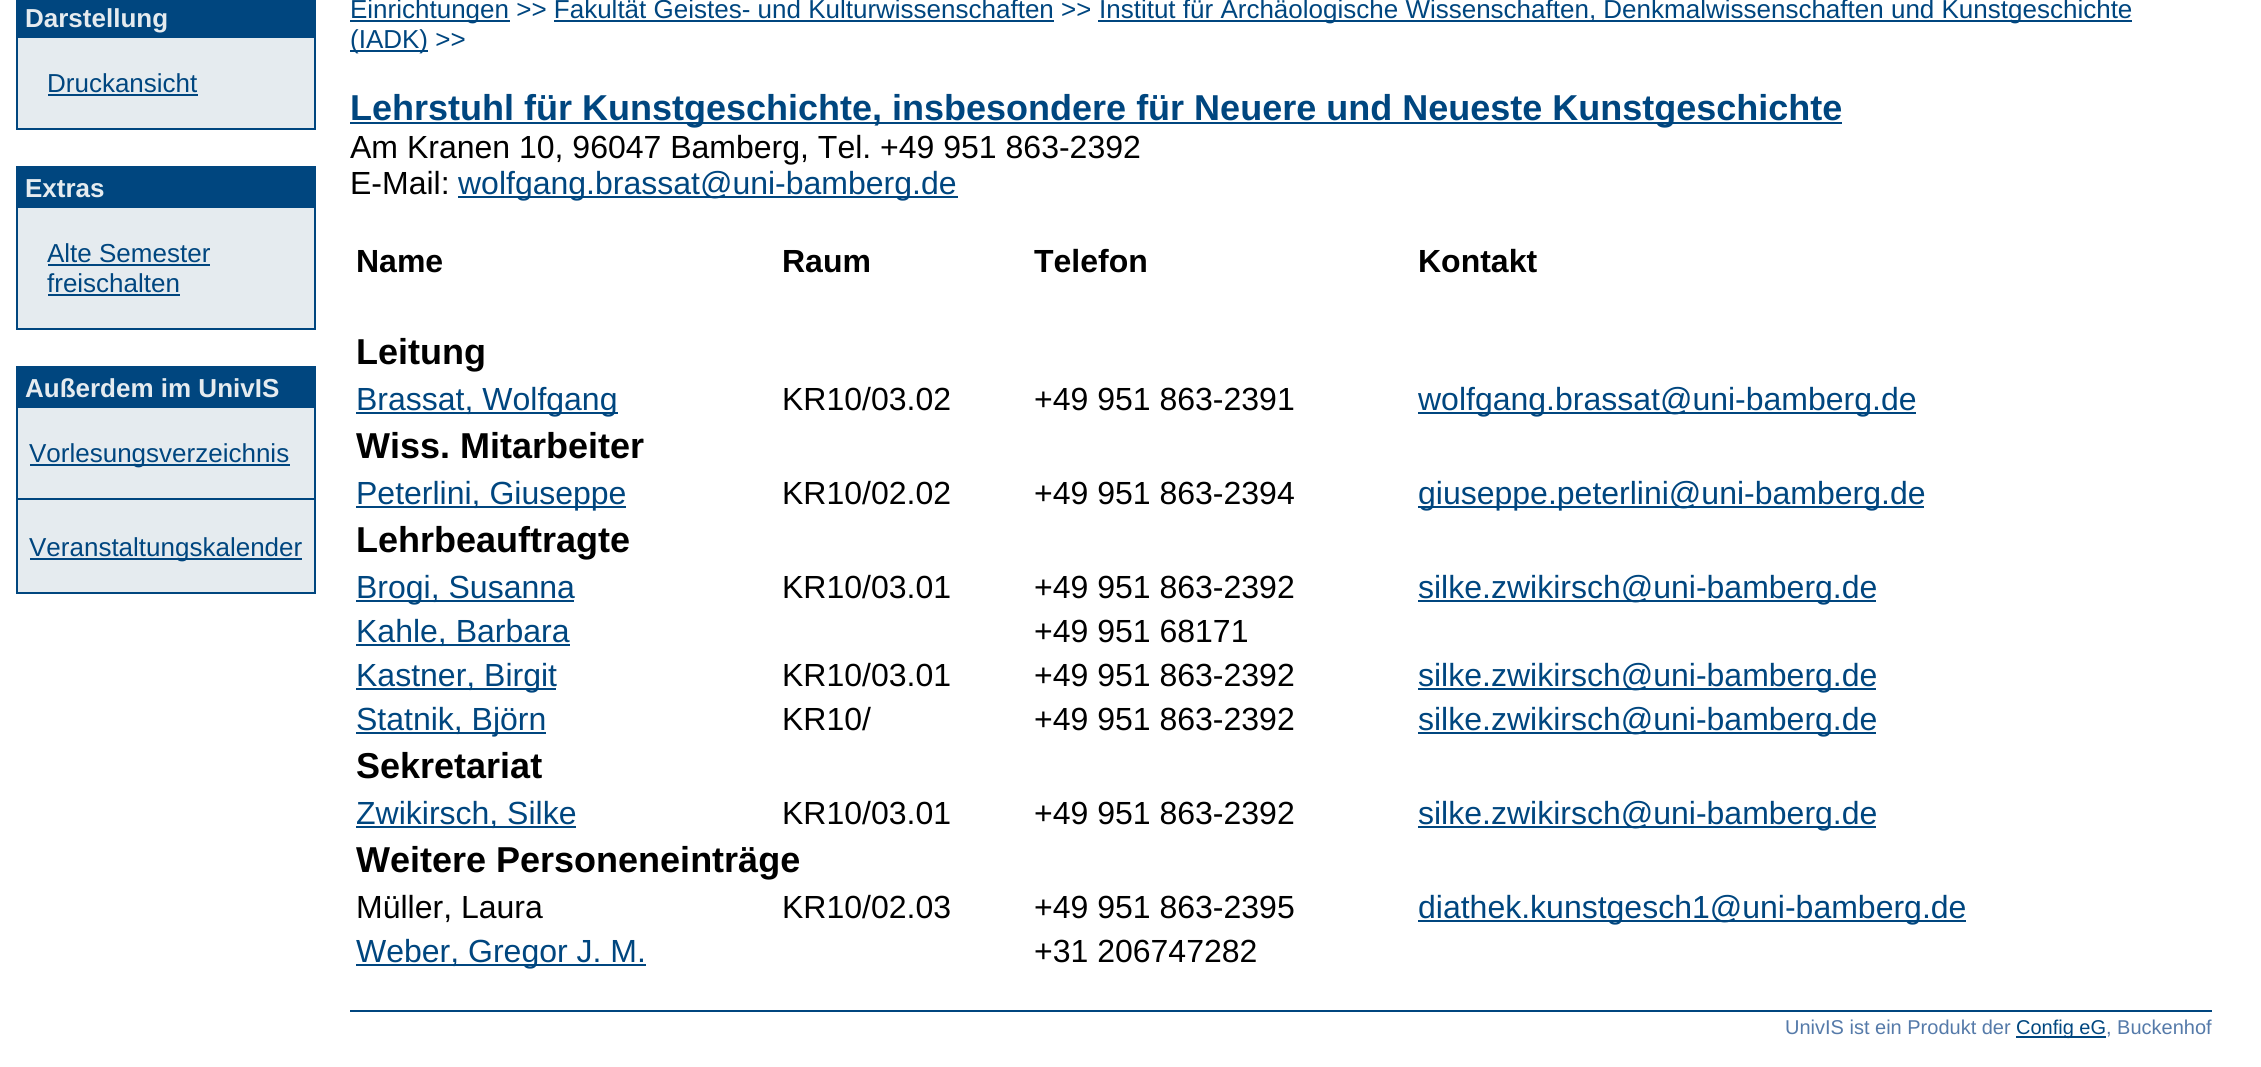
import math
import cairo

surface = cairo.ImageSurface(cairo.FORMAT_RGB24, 2261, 1067)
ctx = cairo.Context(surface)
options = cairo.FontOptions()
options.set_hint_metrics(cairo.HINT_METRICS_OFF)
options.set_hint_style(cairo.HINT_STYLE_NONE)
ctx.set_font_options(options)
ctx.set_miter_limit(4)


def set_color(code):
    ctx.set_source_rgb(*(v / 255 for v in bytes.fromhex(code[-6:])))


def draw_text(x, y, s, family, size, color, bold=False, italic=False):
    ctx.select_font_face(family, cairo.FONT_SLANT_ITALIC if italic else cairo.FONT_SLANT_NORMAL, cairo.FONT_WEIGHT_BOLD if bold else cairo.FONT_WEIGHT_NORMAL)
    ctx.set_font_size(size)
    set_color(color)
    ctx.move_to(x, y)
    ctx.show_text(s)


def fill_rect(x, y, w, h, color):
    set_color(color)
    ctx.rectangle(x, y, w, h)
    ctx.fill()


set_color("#ffffff")
ctx.paint()
fill_rect(16, 0, 2, 130, "#00467f")
fill_rect(314, 0, 2, 130, "#00467f")
fill_rect(18, 0, 296, 38, "#00467f")
draw_text(25, 27, "Darstellung", "Liberation Sans", 26, "#e5ebef", bold=True)
fill_rect(18, 38, 296, 90, "#e5ebef")
draw_text(47, 92, "Druckansicht", "Liberation Sans", 26, "#00467f")
fill_rect(48, 94, 150, 2, "#00467f")
fill_rect(18, 128, 296, 2, "#00467f")
fill_rect(16, 166, 2, 164, "#00467f")
fill_rect(18, 166, 296, 42, "#00467f")
fill_rect(314, 166, 2, 164, "#00467f")
draw_text(25, 197, "Extras", "Liberation Sans", 26, "#e5ebef", bold=True)
fill_rect(18, 208, 296, 120, "#e5ebef")
draw_text(47, 262, "Alte Semester", "Liberation Sans", 26, "#00467f")
fill_rect(48, 264, 162, 2, "#00467f")
draw_text(47, 292, "freischalten", "Liberation Sans", 26, "#00467f")
fill_rect(48, 294, 132, 2, "#00467f")
fill_rect(18, 328, 296, 2, "#00467f")
fill_rect(16, 366, 2, 228, "#00467f")
fill_rect(18, 366, 296, 42, "#00467f")
fill_rect(314, 366, 2, 228, "#00467f")
draw_text(25, 397, "Außerdem im UnivIS", "Liberation Sans", 26, "#e5ebef", bold=True)
fill_rect(18, 408, 296, 90, "#e5ebef")
fill_rect(30, 464, 260, 2, "#00467f")
draw_text(29, 462, "Vorlesungsverzeichnis", "Liberation Sans", 26, "#00467f")
fill_rect(18, 498, 296, 2, "#00467f")
fill_rect(18, 500, 296, 2, "#e5ebef")
fill_rect(18, 502, 296, 90, "#e5ebef")
fill_rect(30, 558, 272, 2, "#00467f")
draw_text(29, 556, "Veranstaltungskalender", "Liberation Sans", 26, "#00467f")
fill_rect(18, 592, 296, 2, "#00467f")
fill_rect(350, 20, 160, 2, "#00467f")
draw_text(350, 18, "Einrichtungen >> Fakultät Geistes- und Kulturwissenschaften >>", "Liberation Sans", 26, "#00467f")
fill_rect(554, 20, 500, 2, "#00467f")
fill_rect(1098, 20, 1034, 2, "#00467f")
draw_text(1099, 18, "Institut für Archäologische Wissenschaften, Denkmalwissenschaften und Kunstgeschichte", "Liberation Sans", 26, "#00467f")
fill_rect(350, 50, 78, 2, "#00467f")
draw_text(350, 48, "(IADK) >>", "Liberation Sans", 26, "#00467f")
fill_rect(350, 122, 1492, 2, "#00467f")
draw_text(350, 120, "Lehrstuhl für Kunstgeschichte, insbesondere für Neuere und Neueste Kunstgeschichte", "Liberation Sans", 36, "#00467f", bold=True)
draw_text(350, 158, "Am Kranen 10, 96047 Bamberg, Tel. +49 951 863-2392", "Liberation Sans", 32, "#000000")
draw_text(350, 194, "E-Mail:", "Liberation Sans", 32, "#000000")
fill_rect(458, 196, 500, 2, "#00467f")
draw_text(458, 194, "wolfgang.brassat@uni-bamberg.de", "Liberation Sans", 32, "#00467f")
draw_text(356, 272, "Name", "Liberation Sans", 32, "#000000", bold=True)
draw_text(782, 272, "Raum", "Liberation Sans", 32, "#000000", bold=True)
draw_text(1034, 272, "Telefon", "Liberation Sans", 32, "#000000", bold=True)
draw_text(1418, 272, "Kontakt", "Liberation Sans", 32, "#000000", bold=True)
draw_text(356, 364, "Leitung", "Liberation Sans", 36, "#000000", bold=True)
fill_rect(356, 412, 262, 2, "#00467f")
draw_text(356, 410, "Brassat, Wolfgang", "Liberation Sans", 32, "#00467f")
draw_text(782, 410, "KR10/03.02", "Liberation Sans", 32, "#000000")
draw_text(1034, 410, "+49 951 863-2391", "Liberation Sans", 32, "#000000")
fill_rect(1418, 412, 498, 2, "#00467f")
draw_text(1418, 410, "wolfgang.brassat@uni-bamberg.de", "Liberation Sans", 32, "#00467f")
draw_text(356, 458, "Wiss. Mitarbeiter", "Liberation Sans", 36, "#000000", bold=True)
fill_rect(356, 506, 270, 2, "#00467f")
draw_text(356, 504, "Peterlini, Giuseppe", "Liberation Sans", 32, "#00467f")
draw_text(782, 504, "KR10/02.02", "Liberation Sans", 32, "#000000")
draw_text(1034, 504, "+49 951 863-2394", "Liberation Sans", 32, "#000000")
fill_rect(1418, 506, 506, 2, "#00467f")
draw_text(1418, 504, "giuseppe.peterlini@uni-bamberg.de", "Liberation Sans", 32, "#00467f")
draw_text(356, 552, "Lehrbeauftragte", "Liberation Sans", 36, "#000000", bold=True)
fill_rect(356, 600, 218, 2, "#00467f")
draw_text(356, 598, "Brogi, Susanna", "Liberation Sans", 32, "#00467f")
draw_text(782, 598, "KR10/03.01", "Liberation Sans", 32, "#000000")
draw_text(1034, 598, "+49 951 863-2392", "Liberation Sans", 32, "#000000")
fill_rect(1418, 600, 458, 2, "#00467f")
draw_text(1418, 598, "silke.zwikirsch@uni-bamberg.de", "Liberation Sans", 32, "#00467f")
fill_rect(356, 644, 214, 2, "#00467f")
draw_text(356, 642, "Kahle, Barbara", "Liberation Sans", 32, "#00467f")
draw_text(1034, 642, "+49 951 68171", "Liberation Sans", 32, "#000000")
fill_rect(356, 688, 200, 2, "#00467f")
draw_text(356, 686, "Kastner, Birgit", "Liberation Sans", 32, "#00467f")
draw_text(782, 686, "KR10/03.01", "Liberation Sans", 32, "#000000")
draw_text(1034, 686, "+49 951 863-2392", "Liberation Sans", 32, "#000000")
fill_rect(1418, 688, 458, 2, "#00467f")
draw_text(1418, 686, "silke.zwikirsch@uni-bamberg.de", "Liberation Sans", 32, "#00467f")
fill_rect(356, 732, 190, 2, "#00467f")
draw_text(356, 730, "Statnik, Björn", "Liberation Sans", 32, "#00467f")
draw_text(782, 730, "KR10/", "Liberation Sans", 32, "#000000")
draw_text(1034, 730, "+49 951 863-2392", "Liberation Sans", 32, "#000000")
fill_rect(1418, 732, 458, 2, "#00467f")
draw_text(1418, 730, "silke.zwikirsch@uni-bamberg.de", "Liberation Sans", 32, "#00467f")
draw_text(356, 778, "Sekretariat", "Liberation Sans", 36, "#000000", bold=True)
fill_rect(356, 826, 220, 2, "#00467f")
draw_text(356, 824, "Zwikirsch, Silke", "Liberation Sans", 32, "#00467f")
draw_text(782, 824, "KR10/03.01", "Liberation Sans", 32, "#000000")
draw_text(1034, 824, "+49 951 863-2392", "Liberation Sans", 32, "#000000")
fill_rect(1418, 826, 458, 2, "#00467f")
draw_text(1418, 824, "silke.zwikirsch@uni-bamberg.de", "Liberation Sans", 32, "#00467f")
draw_text(356, 872, "Weitere Personeneinträge", "Liberation Sans", 36, "#000000", bold=True)
draw_text(356, 918, "Müller, Laura", "Liberation Sans", 32, "#000000")
draw_text(782, 918, "KR10/02.03", "Liberation Sans", 32, "#000000")
draw_text(1034, 918, "+49 951 863-2395", "Liberation Sans", 32, "#000000")
fill_rect(1418, 920, 548, 2, "#00467f")
draw_text(1418, 918, "diathek.kunstgesch1@uni-bamberg.de", "Liberation Sans", 32, "#00467f")
fill_rect(356, 964, 290, 2, "#00467f")
draw_text(356, 962, "Weber, Gregor J. M.", "Liberation Sans", 32, "#00467f")
draw_text(1034, 962, "+31 206747282", "Liberation Sans", 32, "#000000")
fill_rect(350, 1010, 1862, 2, "#00467f")
draw_text(1785, 1034, "UnivIS ist ein Produkt der", "Liberation Sans", 20, "#557aa9")
fill_rect(2016, 1036, 90, 2, "#00467f")
draw_text(2016, 1034, "Config eG", "Liberation Sans", 20, "#00467f")
draw_text(2106, 1034, ", Buckenhof", "Liberation Sans", 20, "#557aa9")
surface.write_to_png("output.png")
